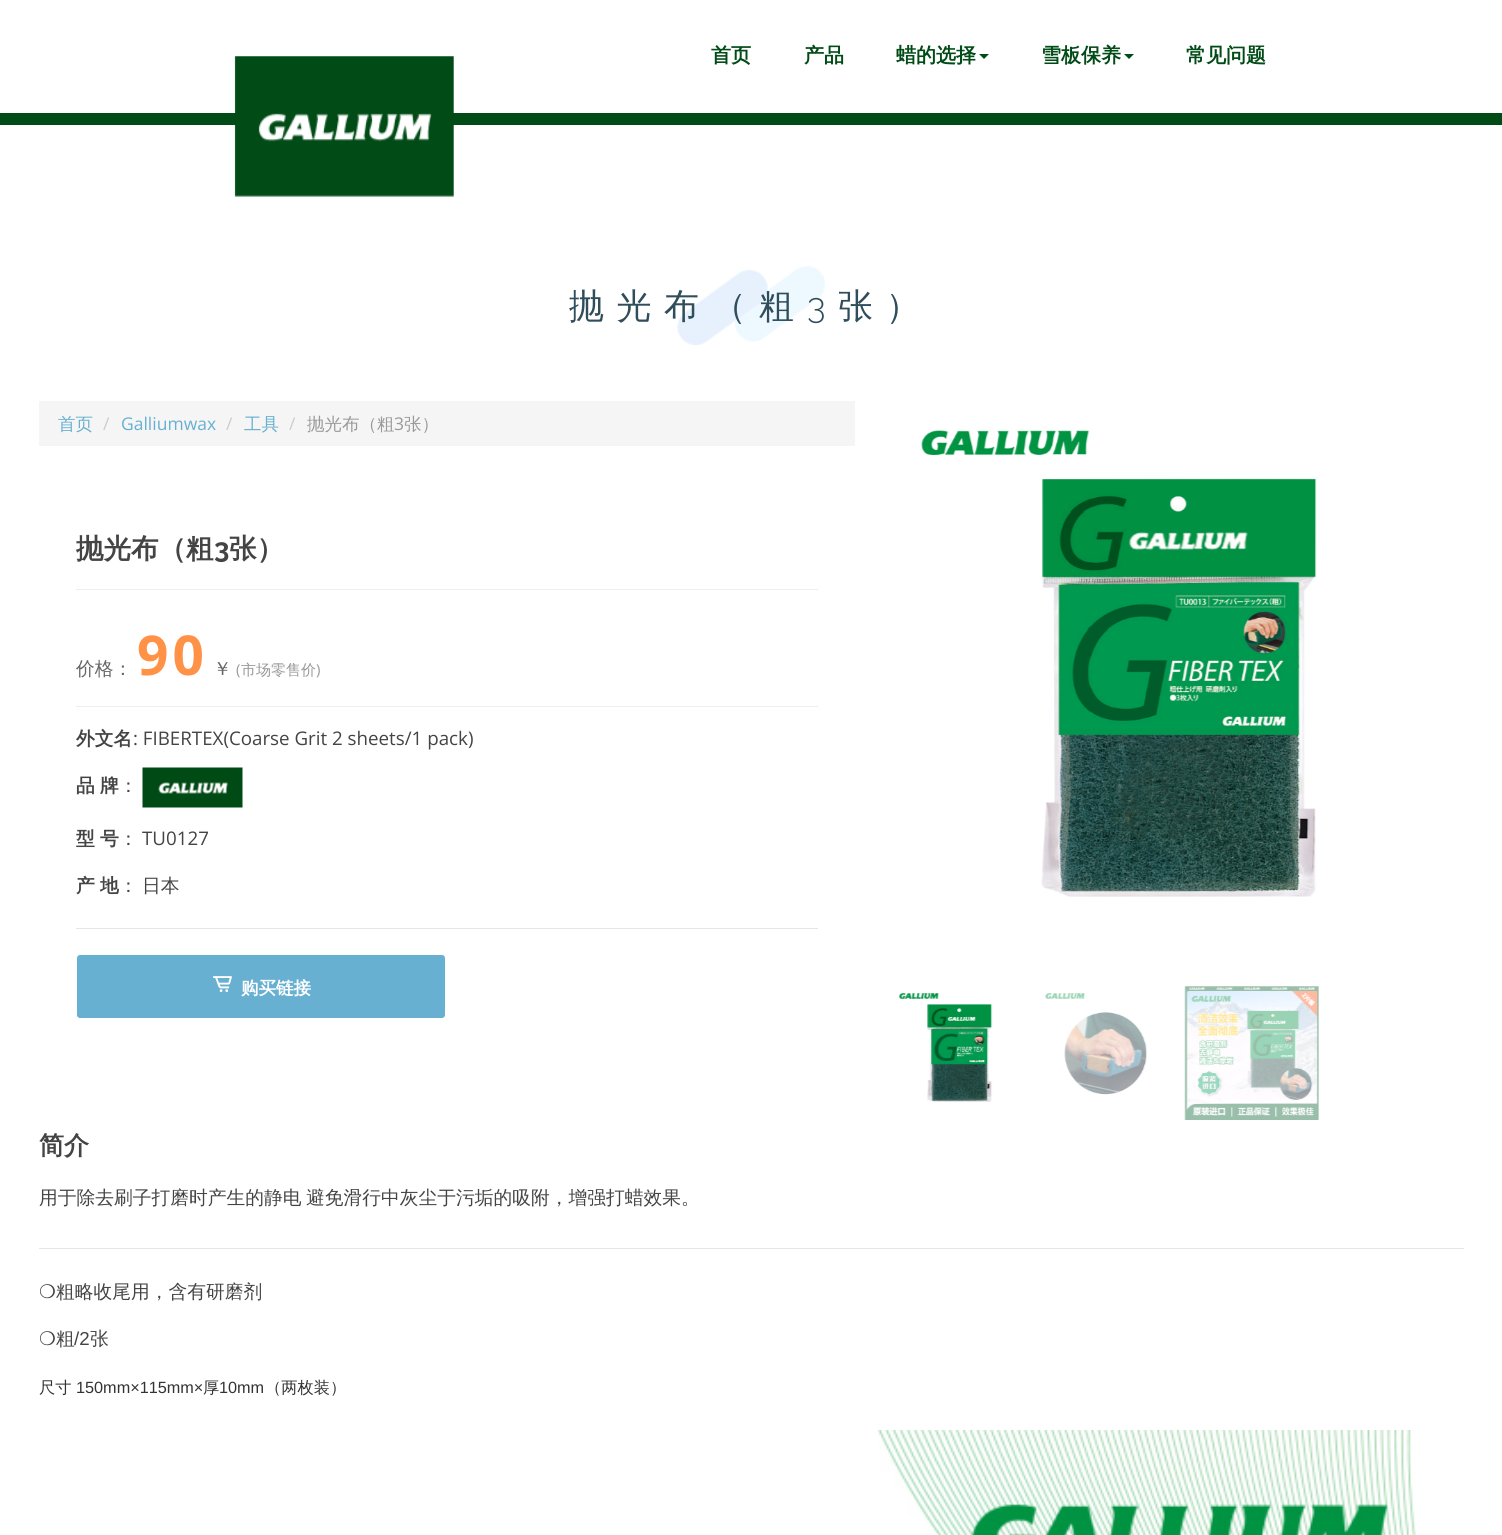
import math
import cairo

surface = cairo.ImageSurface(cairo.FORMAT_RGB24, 1502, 1535)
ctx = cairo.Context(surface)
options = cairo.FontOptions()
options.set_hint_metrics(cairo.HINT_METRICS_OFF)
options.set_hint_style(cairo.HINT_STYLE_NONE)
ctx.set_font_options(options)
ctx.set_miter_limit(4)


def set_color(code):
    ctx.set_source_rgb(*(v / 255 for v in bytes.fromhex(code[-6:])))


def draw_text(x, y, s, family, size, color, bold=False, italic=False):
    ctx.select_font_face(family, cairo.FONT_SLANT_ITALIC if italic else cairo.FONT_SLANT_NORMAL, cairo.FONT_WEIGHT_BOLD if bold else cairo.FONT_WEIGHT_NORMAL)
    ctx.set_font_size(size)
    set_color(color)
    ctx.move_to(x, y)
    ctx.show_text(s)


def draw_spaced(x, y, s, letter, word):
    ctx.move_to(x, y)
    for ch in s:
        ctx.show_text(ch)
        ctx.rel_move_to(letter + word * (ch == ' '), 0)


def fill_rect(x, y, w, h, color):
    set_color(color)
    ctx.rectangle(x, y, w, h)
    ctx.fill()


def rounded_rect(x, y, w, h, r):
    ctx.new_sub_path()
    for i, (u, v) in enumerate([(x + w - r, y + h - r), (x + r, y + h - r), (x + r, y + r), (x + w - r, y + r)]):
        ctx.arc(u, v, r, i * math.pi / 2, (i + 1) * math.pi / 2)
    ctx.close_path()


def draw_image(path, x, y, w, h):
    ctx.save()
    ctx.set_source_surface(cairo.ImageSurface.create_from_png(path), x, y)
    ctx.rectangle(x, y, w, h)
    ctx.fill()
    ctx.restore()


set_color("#ffffff")
ctx.paint()
fill_rect(0, 113, 1502, 12, "#004b16")
draw_image("assets/img1.png", 234, 56, 220, 141)
draw_text(711, 62, "首页", "WenQuanYi Zen Hei", 20, "#004b16", bold=True)
draw_text(804, 62, "产品", "WenQuanYi Zen Hei", 20, "#004b16", bold=True)
draw_text(896, 62, "蜡的选择", "WenQuanYi Zen Hei", 20, "#004b16", bold=True)
ctx.new_path()
ctx.move_to(979, 54)
ctx.line_to(989, 54)
ctx.line_to(984, 59)
ctx.close_path()
ctx.fill()
draw_text(1041, 62, "雪板保养", "WenQuanYi Zen Hei", 20, "#004b16", bold=True)
ctx.new_path()
ctx.move_to(1124, 54)
ctx.line_to(1134, 54)
ctx.line_to(1129, 59)
ctx.close_path()
ctx.fill()
draw_text(1186, 62, "常见问题", "WenQuanYi Zen Hei", 20, "#004b16", bold=True)
draw_image("assets/img2.png", 677, 266, 148, 79)
ctx.select_font_face("WenQuanYi Zen Hei Medium")
ctx.set_font_size(35)
set_color("#2f4d5a")
draw_spaced(569, 318, "抛光布（粗", 12.5, 0)
ctx.select_font_face("Raleway Light")
draw_spaced(807, 318, "3", 12.5, 0)
ctx.select_font_face("WenQuanYi Zen Hei Medium")
draw_spaced(838, 318, "张）", 12.5, 0)
fill_rect(39, 401, 816, 45, "#f5f5f5")
draw_text(58, 430, "首页", "WenQuanYi Zen Hei Medium", 17.5, "#67b0d1")
draw_text(103, 430, "/", "Open Sans", 17.5, "#cccccc")
draw_text(121, 430, "Galliumwax", "Open Sans", 17.5, "#67b0d1")
draw_text(226, 430, "/", "Open Sans", 17.5, "#cccccc")
draw_text(244, 430, "工具", "WenQuanYi Zen Hei Medium", 17.5, "#67b0d1")
draw_text(289, 430, "/", "Open Sans", 17.5, "#cccccc")
draw_text(307, 430, "抛光布（粗", "WenQuanYi Zen Hei Medium", 17.5, "#999999")
draw_text(394, 430, "3", "Open Sans", 17.5, "#999999")
draw_text(404, 430, "张）", "WenQuanYi Zen Hei Medium", 17.5, "#999999")
fill_rect(76, 589, 742, 1, "#eeeeee")
draw_text(76, 558, "抛光布（粗", "WenQuanYi Zen Hei", 27.5, "#444444", bold=True)
draw_text(214, 558, "3", "Raleway", 27.5, "#444444", bold=True)
draw_text(229, 558, "张）", "WenQuanYi Zen Hei", 27.5, "#444444", bold=True)
fill_rect(76, 706, 742, 1, "#eeeeee")
draw_text(76, 675, "价格：", "WenQuanYi Zen Hei Medium", 18.75, "#666666")
ctx.select_font_face("Open Sans", cairo.FONT_SLANT_NORMAL, cairo.FONT_WEIGHT_BOLD)
ctx.set_font_size(55)
set_color("#ff9247")
draw_spaced(137, 675, "90", 4, 0)
draw_text(213, 675, "￥", "WenQuanYi Zen Hei Medium", 18.75, "#666666")
draw_text(236, 675, "(", "Open Sans", 15, "#999999")
draw_text(241, 675, "市场零售价", "WenQuanYi Zen Hei Medium", 15, "#999999")
draw_text(316, 675, ")", "Open Sans", 15, "#999999")
draw_text(76, 745, "外文名", "WenQuanYi Zen Hei", 18.75, "#444444", bold=True)
draw_text(133, 745, ": FIBERTEX(Coarse Grit 2 sheets/1 pack)", "Open Sans", 18.75, "#444444")
draw_text(76, 792, "品", "WenQuanYi Zen Hei", 18.75, "#444444", bold=True)
draw_text(100, 792, "牌", "WenQuanYi Zen Hei", 18.75, "#444444", bold=True)
draw_text(119, 792, "：", "WenQuanYi Zen Hei Medium", 18.75, "#444444")
draw_image("assets/img3.png", 142, 767, 101, 41)
draw_text(76, 845, "型", "WenQuanYi Zen Hei", 18.75, "#444444", bold=True)
draw_text(100, 845, "号", "WenQuanYi Zen Hei", 18.75, "#444444", bold=True)
draw_text(119, 845, "：", "WenQuanYi Zen Hei Medium", 18.75, "#444444")
draw_text(142, 845, "TU0127", "Open Sans", 18.75, "#444444")
draw_text(76, 892, "产", "WenQuanYi Zen Hei", 18.75, "#444444", bold=True)
draw_text(100, 892, "地", "WenQuanYi Zen Hei", 18.75, "#444444", bold=True)
draw_text(119, 892, "：", "WenQuanYi Zen Hei Medium", 18.75, "#444444")
draw_text(142, 892, "日本", "WenQuanYi Zen Hei Medium", 18.75, "#444444")
fill_rect(76, 928, 742, 1, "#e6e6e6")
set_color("#67b0d1")
rounded_rect(76.5, 954.5, 369, 64, 3.5)
ctx.fill_preserve()
set_color("#ffffff")
ctx.set_line_width(1)
ctx.stroke()
draw_image("assets/img4.png", 213, 976, 19, 16)
draw_text(241, 994, "购买链接", "WenQuanYi Zen Hei", 17.5, "#ffffff", bold=True)
draw_text(39, 1154, "简介", "WenQuanYi Zen Hei", 25, "#444444", bold=True)
ctx.select_font_face("WenQuanYi Zen Hei Medium")
ctx.set_font_size(18.75)
draw_spaced(39, 1204, "用于除去刷子打磨时产生的静电 避免滑行中灰尘于污垢的吸附，增强打蜡效果。", 0, -1)
draw_image("assets/img5.png", 921, 430, 396, 467)
draw_image("assets/img6.png", 899, 993, 94, 109)
draw_image("assets/img7.png", 1045, 993, 102, 102)
draw_image("assets/img8.png", 1184, 986, 135, 134)
fill_rect(39, 1248, 1425, 1, "#e6e6e6")
draw_text(39, 1298, "❍", "DejaVu Sans", 18.75, "#444444")
draw_text(56, 1298, "粗略收尾用，含有研磨剂", "WenQuanYi Zen Hei Medium", 18.75, "#444444")
draw_text(39, 1345, "❍", "DejaVu Sans", 18.75, "#444444")
draw_text(56, 1345, "粗", "WenQuanYi Zen Hei Medium", 18.75, "#444444")
draw_text(74, 1345, "/2", "Liberation Sans", 18.75, "#444444")
draw_text(90, 1345, "张", "WenQuanYi Zen Hei Medium", 18.75, "#444444")
draw_text(39, 1393, "尺寸", "WenQuanYi Zen Hei Medium", 16.25, "#333333")
draw_text(76, 1393, "150mm×115mm×", "Liberation Sans", 16.25, "#333333")
draw_text(203, 1393, "厚", "WenQuanYi Zen Hei Medium", 16.25, "#333333")
draw_text(219, 1393, "10mm", "Liberation Sans", 16.25, "#333333")
draw_text(265, 1393, "（两枚装）", "WenQuanYi Zen Hei Medium", 16.25, "#333333")
draw_image("assets/img9.png", 877, 1430, 539, 105)
surface.write_to_png("output.png")
